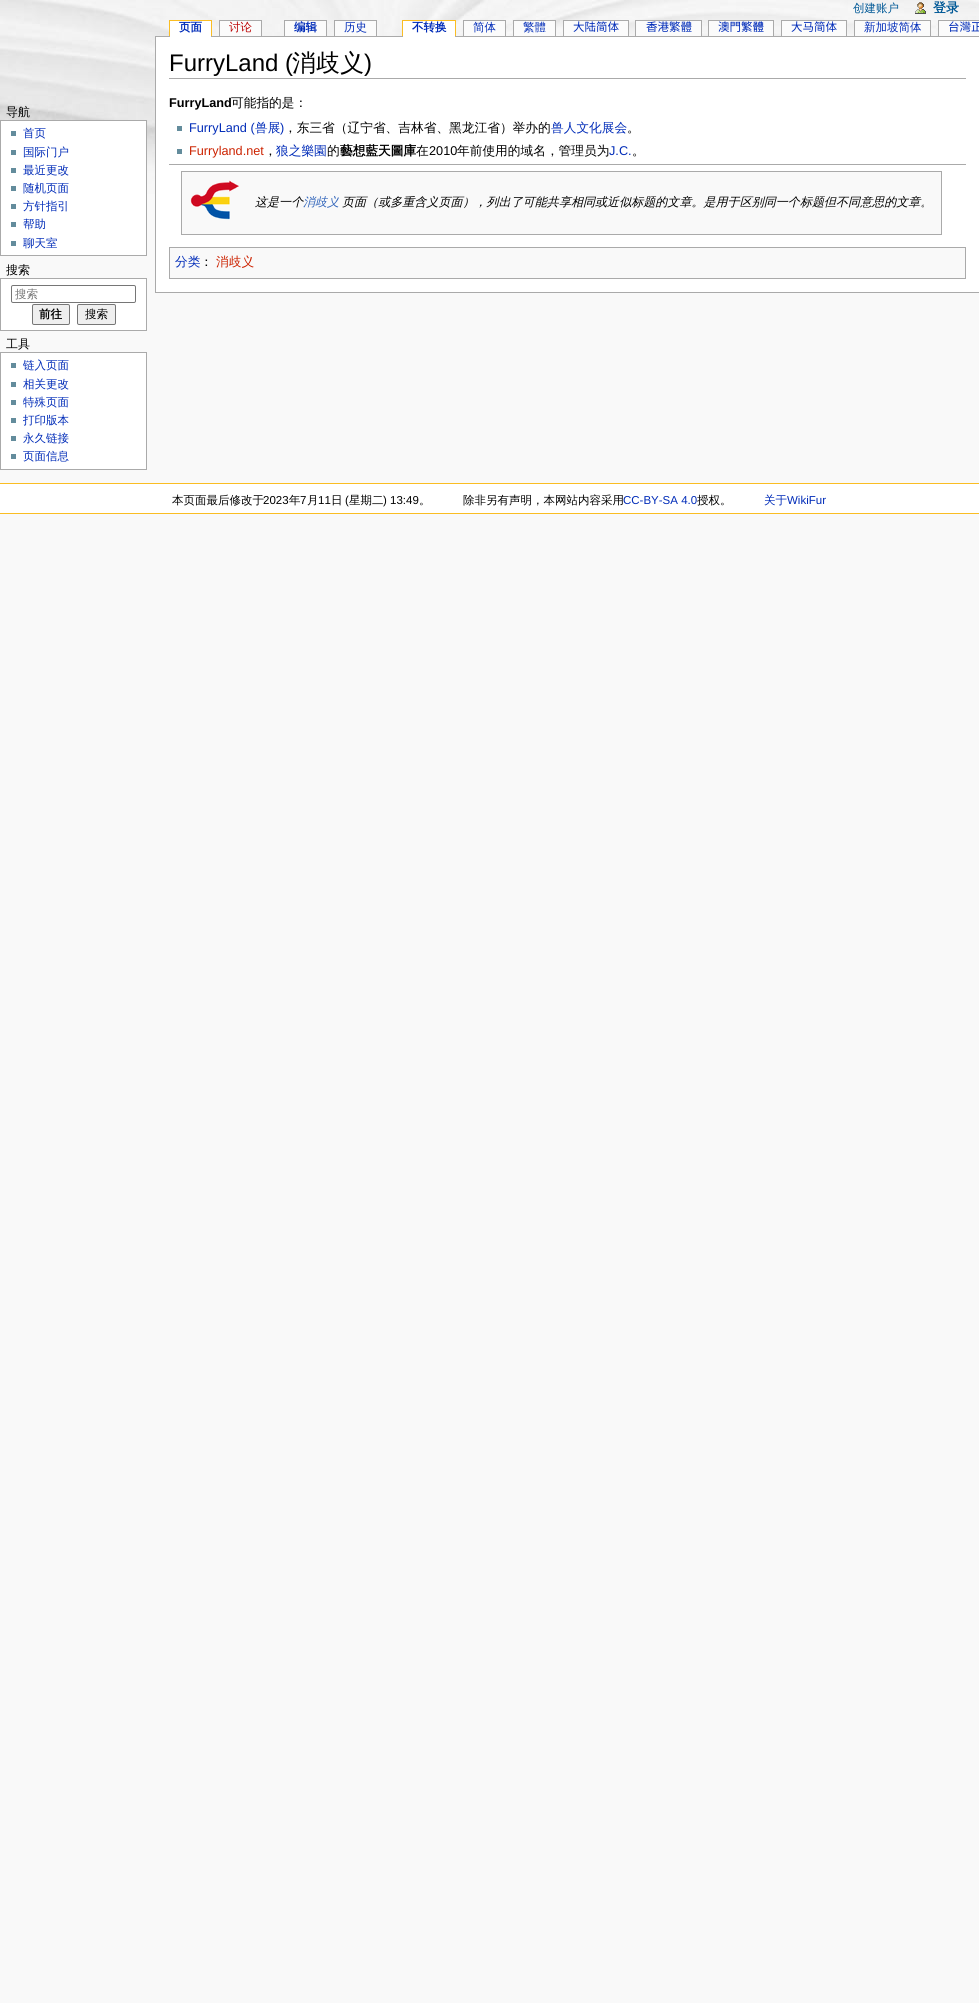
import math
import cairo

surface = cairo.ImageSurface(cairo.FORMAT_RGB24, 979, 2003)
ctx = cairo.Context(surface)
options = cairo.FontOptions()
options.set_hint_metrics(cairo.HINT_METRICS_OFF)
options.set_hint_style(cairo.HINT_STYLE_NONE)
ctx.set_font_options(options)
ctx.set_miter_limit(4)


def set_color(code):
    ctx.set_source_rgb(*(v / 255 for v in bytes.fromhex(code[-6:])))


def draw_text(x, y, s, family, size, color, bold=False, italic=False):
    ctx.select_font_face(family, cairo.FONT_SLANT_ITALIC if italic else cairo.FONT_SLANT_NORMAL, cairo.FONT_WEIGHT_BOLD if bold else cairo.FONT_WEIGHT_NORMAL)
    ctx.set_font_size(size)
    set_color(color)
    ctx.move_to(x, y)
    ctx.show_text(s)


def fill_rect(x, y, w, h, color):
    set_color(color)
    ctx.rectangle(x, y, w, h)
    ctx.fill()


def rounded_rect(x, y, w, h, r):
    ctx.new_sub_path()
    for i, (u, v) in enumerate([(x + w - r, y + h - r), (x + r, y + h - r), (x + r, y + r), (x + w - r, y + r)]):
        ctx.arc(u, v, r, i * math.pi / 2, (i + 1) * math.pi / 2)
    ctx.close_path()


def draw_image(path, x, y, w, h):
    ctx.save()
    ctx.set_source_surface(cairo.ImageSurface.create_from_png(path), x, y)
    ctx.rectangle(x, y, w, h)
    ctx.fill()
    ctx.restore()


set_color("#f9f9f9")
ctx.paint()
draw_image("assets/img1.png", 0, 0, 979, 194)
draw_text(853, 12, "创建账户", "WenQuanYi Zen Hei Medium", 11.5, "#005896")
draw_image("assets/img2.png", 915, 2, 11, 12)
draw_text(933, 12, "登录", "WenQuanYi Zen Hei", 13, "#005896", bold=True)
fill_rect(155, 36, 824, 1, "#aaaaaa")
fill_rect(170, 21, 41, 16, "#ffffff")
draw_text(179, 31, "页面", "WenQuanYi Zen Hei", 11.5, "#002bb8", bold=True)
fill_rect(169, 20, 43, 1, "#fabd23")
fill_rect(211, 20, 1, 16, "#fabd23")
fill_rect(169, 20, 1, 16, "#fabd23")
fill_rect(220, 21, 41, 15, "#fbfbfb")
draw_text(229, 31, "讨论", "WenQuanYi Zen Hei Medium", 11.5, "#ba0000")
fill_rect(219, 20, 43, 1, "#aaaaaa")
fill_rect(261, 20, 1, 16, "#aaaaaa")
fill_rect(219, 20, 1, 16, "#aaaaaa")
fill_rect(285, 21, 41, 15, "#fbfbfb")
draw_text(294, 31, "编辑", "WenQuanYi Zen Hei", 11.5, "#002bb8", bold=True)
fill_rect(284, 20, 43, 1, "#aaaaaa")
fill_rect(326, 20, 1, 16, "#aaaaaa")
fill_rect(284, 20, 1, 16, "#aaaaaa")
fill_rect(335, 21, 41, 15, "#fbfbfb")
draw_text(344, 31, "历史", "WenQuanYi Zen Hei Medium", 11.5, "#002bb8")
fill_rect(334, 20, 43, 1, "#aaaaaa")
fill_rect(376, 20, 1, 16, "#aaaaaa")
fill_rect(334, 20, 1, 16, "#aaaaaa")
fill_rect(403, 21, 52, 16, "#ffffff")
draw_text(412, 31, "不转换", "WenQuanYi Zen Hei", 11.5, "#002bb8", bold=True)
fill_rect(402, 20, 54, 1, "#fabd23")
fill_rect(455, 20, 1, 16, "#fabd23")
fill_rect(402, 20, 1, 16, "#fabd23")
fill_rect(464, 21, 41, 15, "#fbfbfb")
draw_text(473, 31, "简体", "WenQuanYi Zen Hei Medium", 11.5, "#002bb8")
fill_rect(463, 20, 43, 1, "#aaaaaa")
fill_rect(505, 20, 1, 16, "#aaaaaa")
fill_rect(463, 20, 1, 16, "#aaaaaa")
fill_rect(514, 21, 41, 15, "#fbfbfb")
draw_text(523, 31, "繁體", "WenQuanYi Zen Hei Medium", 11.5, "#002bb8")
fill_rect(513, 20, 43, 1, "#aaaaaa")
fill_rect(555, 20, 1, 16, "#aaaaaa")
fill_rect(513, 20, 1, 16, "#aaaaaa")
fill_rect(564, 21, 64, 15, "#fbfbfb")
draw_text(573, 31, "大陆简体", "Noto Sans CJK SC", 11.5, "#002bb8")
fill_rect(563, 20, 66, 1, "#aaaaaa")
fill_rect(628, 20, 1, 16, "#aaaaaa")
fill_rect(563, 20, 1, 16, "#aaaaaa")
fill_rect(636, 21, 65, 15, "#fbfbfb")
draw_text(646, 31, "香港繁體", "Noto Sans CJK HK", 11.5, "#002bb8")
fill_rect(635, 20, 67, 1, "#aaaaaa")
fill_rect(701, 20, 1, 16, "#aaaaaa")
fill_rect(635, 20, 1, 16, "#aaaaaa")
fill_rect(709, 21, 64, 15, "#fbfbfb")
draw_text(718, 31, "澳門繁體", "Chiron Hei HK", 11.5, "#002bb8")
fill_rect(708, 20, 66, 1, "#aaaaaa")
fill_rect(773, 20, 1, 16, "#aaaaaa")
fill_rect(708, 20, 1, 16, "#aaaaaa")
fill_rect(782, 21, 64, 15, "#fbfbfb")
draw_text(791, 31, "大马简体", "Noto Sans CJK SC", 11.5, "#002bb8")
fill_rect(781, 20, 66, 1, "#aaaaaa")
fill_rect(846, 20, 1, 16, "#aaaaaa")
fill_rect(781, 20, 1, 16, "#aaaaaa")
fill_rect(855, 21, 75, 15, "#fbfbfb")
draw_text(864, 31, "新加坡简体", "WenQuanYi Zen Hei Medium", 11.5, "#002bb8")
fill_rect(854, 20, 77, 1, "#aaaaaa")
fill_rect(930, 20, 1, 16, "#aaaaaa")
fill_rect(854, 20, 1, 16, "#aaaaaa")
fill_rect(939, 21, 40, 15, "#fbfbfb")
draw_text(948, 31, "台灣正", "Noto Sans CJK TC", 11.5, "#002bb8")
fill_rect(938, 20, 41, 1, "#aaaaaa")
fill_rect(938, 20, 1, 16, "#aaaaaa")
draw_text(6, 116, "导航", "WenQuanYi Zen Hei Medium", 12, "#000000")
set_color("#ffffff")
ctx.rectangle(0.5, 120.5, 146, 135)
ctx.fill_preserve()
set_color("#aaaaaa")
ctx.set_line_width(1)
ctx.stroke()
fill_rect(11, 131, 5, 5, "#638c9c")
draw_text(23, 137, "首页", "WenQuanYi Zen Hei Medium", 11.5, "#002bb8")
fill_rect(11, 150, 5, 5, "#638c9c")
draw_text(23, 156, "国际门户", "WenQuanYi Zen Hei Medium", 11.5, "#002bb8")
fill_rect(11, 168, 5, 5, "#638c9c")
draw_text(23, 174, "最近更改", "WenQuanYi Zen Hei Medium", 11.5, "#002bb8")
fill_rect(11, 186, 5, 5, "#638c9c")
draw_text(23, 192, "随机页面", "WenQuanYi Zen Hei Medium", 11.5, "#002bb8")
fill_rect(11, 204, 5, 5, "#638c9c")
draw_text(23, 210, "方针指引", "WenQuanYi Zen Hei Medium", 11.5, "#002bb8")
fill_rect(11, 222, 5, 5, "#638c9c")
draw_text(23, 228, "帮助", "WenQuanYi Zen Hei Medium", 11.5, "#002bb8")
fill_rect(11, 241, 5, 5, "#638c9c")
draw_text(23, 247, "聊天室", "WenQuanYi Zen Hei Medium", 11.5, "#002bb8")
draw_text(6, 274, "搜索", "WenQuanYi Zen Hei Medium", 12, "#000000")
set_color("#ffffff")
ctx.rectangle(0.5, 278.5, 146, 52)
ctx.fill_preserve()
set_color("#aaaaaa")
ctx.stroke()
rounded_rect(11.5, 285.5, 124, 17, 1.5)
set_color("#767676")
ctx.stroke()
draw_text(15, 298, "搜索", "WenQuanYi Zen Hei Medium", 11.5, "#757575")
set_color("#efefef")
rounded_rect(32.5, 304.5, 37, 20, 1.5)
ctx.fill_preserve()
set_color("#767676")
ctx.stroke()
draw_text(39, 318, "前往", "WenQuanYi Zen Hei", 11.5, "#000000", bold=True)
set_color("#efefef")
rounded_rect(77.5, 304.5, 38, 20, 1.5)
ctx.fill_preserve()
set_color("#767676")
ctx.stroke()
draw_text(85, 318, "搜索", "WenQuanYi Zen Hei Medium", 11.5, "#000000")
draw_text(6, 348, "工具", "WenQuanYi Zen Hei Medium", 12, "#000000")
set_color("#ffffff")
ctx.rectangle(0.5, 352.5, 146, 117)
ctx.fill_preserve()
set_color("#aaaaaa")
ctx.stroke()
fill_rect(11, 363, 5, 5, "#638c9c")
draw_text(23, 369, "链入页面", "WenQuanYi Zen Hei Medium", 11.5, "#002bb8")
fill_rect(11, 382, 5, 5, "#638c9c")
draw_text(23, 388, "相关更改", "WenQuanYi Zen Hei Medium", 11.5, "#002bb8")
fill_rect(11, 400, 5, 5, "#638c9c")
draw_text(23, 406, "特殊页面", "WenQuanYi Zen Hei Medium", 11.5, "#002bb8")
fill_rect(11, 418, 5, 5, "#638c9c")
draw_text(23, 424, "打印版本", "WenQuanYi Zen Hei Medium", 11.5, "#002bb8")
fill_rect(11, 436, 5, 5, "#638c9c")
draw_text(23, 442, "永久链接", "WenQuanYi Zen Hei Medium", 11.5, "#002bb8")
fill_rect(11, 454, 5, 5, "#638c9c")
draw_text(23, 460, "页面信息", "WenQuanYi Zen Hei Medium", 11.5, "#002bb8")
fill_rect(156, 37, 823, 255, "#ffffff")
fill_rect(155, 292, 824, 1, "#aaaaaa")
fill_rect(155, 36, 1, 257, "#aaaaaa")
fill_rect(169, 78, 797, 1, "#aaaaaa")
draw_text(169, 71, "FurryLand (", "Liberation Sans", 24, "#000000")
draw_text(292, 71, "消歧义", "WenQuanYi Zen Hei Medium", 24, "#000000")
draw_text(364, 71, ")", "Liberation Sans", 24, "#000000")
draw_text(169, 107, "FurryLand", "Liberation Sans", 12.7, "#000000", bold=True)
draw_text(231, 107, "可能指的是：", "WenQuanYi Zen Hei Medium", 12.7, "#000000")
fill_rect(177, 126, 5, 5, "#638c9c")
draw_text(189, 132, "FurryLand (", "Liberation Sans", 12.7, "#002bb8")
draw_text(255, 132, "兽展", "WenQuanYi Zen Hei Medium", 12.7, "#002bb8")
draw_text(280, 132, ")", "Liberation Sans", 12.7, "#002bb8")
draw_text(284, 132, "，东三省（辽宁省、吉林省、黑龙江省）举办的", "WenQuanYi Zen Hei Medium", 12.7, "#000000")
draw_text(551, 132, "兽人文化展会", "WenQuanYi Zen Hei Medium", 12.7, "#002bb8")
draw_text(627, 132, "。", "WenQuanYi Zen Hei Medium", 12.7, "#000000")
fill_rect(177, 149, 5, 5, "#638c9c")
draw_text(189, 155, "Furryland.net", "Liberation Sans", 12.7, "#cc2200")
draw_text(264, 155, "，", "WenQuanYi Zen Hei Medium", 12.7, "#000000")
draw_text(276, 155, "狼之樂園", "WenQuanYi Zen Hei Medium", 12.7, "#002bb8")
draw_text(327, 155, "的", "WenQuanYi Zen Hei Medium", 12.7, "#000000")
draw_text(340, 155, "藝想藍天圖庫", "WenQuanYi Zen Hei", 12.7, "#000000", bold=True)
draw_text(416, 155, "在", "WenQuanYi Zen Hei Medium", 12.7, "#000000")
draw_text(429, 155, "2010", "Liberation Sans", 12.7, "#000000")
draw_text(457, 155, "年前使用的域名，管理员为", "WenQuanYi Zen Hei Medium", 12.7, "#000000")
draw_text(609, 155, "J.C.", "Liberation Sans", 12.7, "#002bb8")
draw_text(632, 155, "。", "WenQuanYi Zen Hei Medium", 12.7, "#000000")
fill_rect(169, 164, 797, 1, "#aaaaaa")
set_color("#f9f9f9")
ctx.rectangle(181.5, 171.5, 760, 63)
ctx.fill_preserve()
set_color("#aaaaaa")
ctx.stroke()
draw_image("assets/img3.png", 190, 180, 49, 40)
draw_text(255, 206, "这是一个", "WenQuanYi Zen Hei Medium", 12.05, "#000000", italic=True)
draw_text(303, 206, "消歧义", "WenQuanYi Zen Hei Medium", 12.05, "#3366bb", italic=True)
draw_text(342, 206, "页面（或多重含义页面），列出了可能共享相同或近似标题的文章。是用于区别同一个标题但不同意思的文章。", "WenQuanYi Zen Hei Medium", 12.05, "#000000", italic=True)
set_color("#f9f9f9")
ctx.rectangle(169.5, 247.5, 796, 31)
ctx.fill_preserve()
set_color("#aaaaaa")
ctx.stroke()
draw_text(175, 266, "分类", "WenQuanYi Zen Hei Medium", 12.7, "#002bb8")
draw_text(200, 266, "：", "WenQuanYi Zen Hei Medium", 12.7, "#000000")
draw_text(216, 266, "消歧义", "WenQuanYi Zen Hei Medium", 12.7, "#cc2200")
fill_rect(0, 484, 979, 29, "#ffffff")
fill_rect(0, 483, 979, 1, "#fabd23")
fill_rect(0, 513, 979, 1, "#fabd23")
draw_text(172, 504, "本页面最后修改于", "WenQuanYi Zen Hei Medium", 11.5, "#000000")
draw_text(263, 504, "2023", "Liberation Sans", 11.5, "#000000")
draw_text(289, 504, "年", "WenQuanYi Zen Hei Medium", 11.5, "#000000")
draw_text(300, 504, "7", "Liberation Sans", 11.5, "#000000")
draw_text(307, 504, "月", "WenQuanYi Zen Hei Medium", 11.5, "#000000")
draw_text(318, 504, "11", "Liberation Sans", 11.5, "#000000")
draw_text(331, 504, "日", "WenQuanYi Zen Hei Medium", 11.5, "#000000")
draw_text(345, 504, "(", "Liberation Sans", 11.5, "#000000")
draw_text(349, 504, "星期二", "WenQuanYi Zen Hei Medium", 11.5, "#000000")
draw_text(383, 504, ") 13:49", "Liberation Sans", 11.5, "#000000")
draw_text(419, 504, "。", "WenQuanYi Zen Hei Medium", 11.5, "#000000")
draw_text(463, 504, "除非另有声明，本网站内容采用", "WenQuanYi Zen Hei Medium", 11.5, "#000000")
draw_text(623, 504, "CC-BY-SA 4.0", "Liberation Sans", 11.5, "#002bb8")
draw_text(697, 504, "授权。", "WenQuanYi Zen Hei Medium", 11.5, "#000000")
draw_text(764, 504, "关于", "WenQuanYi Zen Hei Medium", 11.5, "#002bb8")
draw_text(787, 504, "WikiFur", "Liberation Sans", 11.5, "#002bb8")
surface.write_to_png("output.png")
